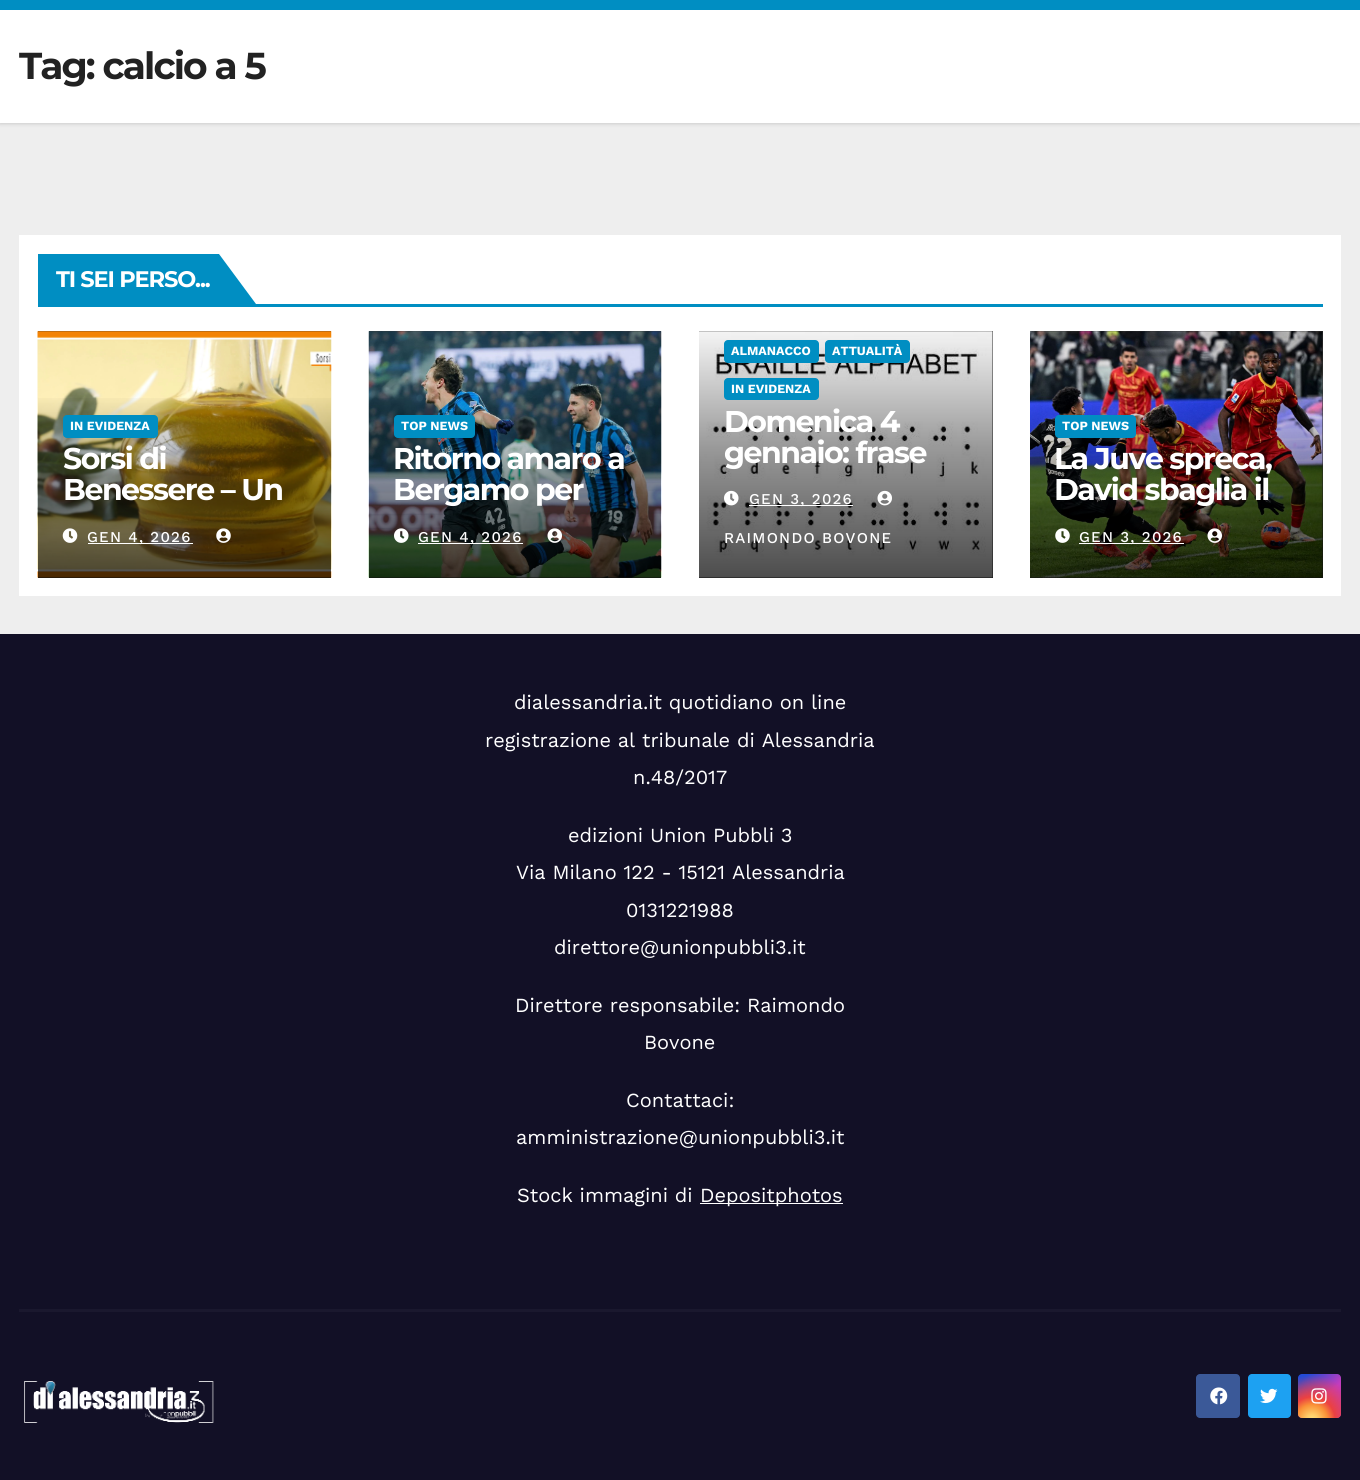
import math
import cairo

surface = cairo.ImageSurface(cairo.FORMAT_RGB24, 1360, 1480)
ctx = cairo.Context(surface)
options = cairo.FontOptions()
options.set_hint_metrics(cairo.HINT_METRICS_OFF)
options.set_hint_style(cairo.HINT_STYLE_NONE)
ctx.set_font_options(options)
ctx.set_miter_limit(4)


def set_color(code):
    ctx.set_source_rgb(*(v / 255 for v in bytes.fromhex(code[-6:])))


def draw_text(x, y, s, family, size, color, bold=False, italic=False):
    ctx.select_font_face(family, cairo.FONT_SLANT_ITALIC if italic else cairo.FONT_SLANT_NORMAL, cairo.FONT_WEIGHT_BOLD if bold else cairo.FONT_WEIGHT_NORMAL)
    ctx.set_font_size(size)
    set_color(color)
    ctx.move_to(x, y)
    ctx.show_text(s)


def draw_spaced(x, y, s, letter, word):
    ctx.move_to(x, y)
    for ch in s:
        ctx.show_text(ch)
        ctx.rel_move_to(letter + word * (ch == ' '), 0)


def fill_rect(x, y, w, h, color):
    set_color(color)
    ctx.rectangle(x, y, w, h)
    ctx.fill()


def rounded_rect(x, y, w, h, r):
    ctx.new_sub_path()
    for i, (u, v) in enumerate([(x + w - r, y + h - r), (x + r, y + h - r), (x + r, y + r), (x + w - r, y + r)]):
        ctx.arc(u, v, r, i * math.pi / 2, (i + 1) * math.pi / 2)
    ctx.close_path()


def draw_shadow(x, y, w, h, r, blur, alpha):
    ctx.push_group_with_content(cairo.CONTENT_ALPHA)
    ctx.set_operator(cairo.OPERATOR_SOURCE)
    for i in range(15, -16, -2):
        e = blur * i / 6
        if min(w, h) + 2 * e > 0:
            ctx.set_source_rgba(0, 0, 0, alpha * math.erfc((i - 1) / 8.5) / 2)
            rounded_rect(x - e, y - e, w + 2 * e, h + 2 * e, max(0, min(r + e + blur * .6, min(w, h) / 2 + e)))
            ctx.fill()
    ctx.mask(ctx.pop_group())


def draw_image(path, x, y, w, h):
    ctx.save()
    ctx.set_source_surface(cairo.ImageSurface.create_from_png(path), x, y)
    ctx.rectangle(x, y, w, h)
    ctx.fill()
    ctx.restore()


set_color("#eeeeee")
ctx.paint()
set_color("#000000")
draw_shadow(0, 11, 1360, 113, 0, 2, 0.15)
fill_rect(0, 0, 1360, 10, "#008ec2")
fill_rect(0, 10, 1360, 113, "#ffffff")
ctx.select_font_face("Montserrat", cairo.FONT_SLANT_NORMAL, cairo.FONT_WEIGHT_BOLD)
ctx.set_font_size(37.5)
set_color("#222222")
draw_spaced(19, 79, "Tag: calcio a 5", -1.9, 0)
fill_rect(19, 235, 1322, 361, "#ffffff")
fill_rect(38, 304, 1285, 3, "#008ec2")
fill_rect(38, 254, 181, 50, "#008ec2")
ctx.set_font_size(22.5)
set_color("#ffffff")
draw_spaced(56, 287, "TI SEI PERSO...", -1.1, 0)
set_color("#008ec2")
ctx.new_path()
ctx.move_to(219, 304)
ctx.line_to(219, 254)
ctx.line_to(256, 304)
ctx.close_path()
ctx.fill()
fill_rect(38, 331, 293, 247, "#333333")
draw_image("assets/img1.png", 37, 331, 295, 247)
gradient = cairo.LinearGradient(184, 393, 184, 578)
gradient.add_color_stop_rgba(0, 0, 0, 0, 0)
gradient.add_color_stop_rgba(0.5, 0, 0, 0, 0.4)
gradient.add_color_stop_rgba(1, 0, 0, 0, 0.7)
ctx.set_source(gradient)
ctx.rectangle(38, 398, 293, 180)
ctx.fill()
set_color("#008ec2")
rounded_rect(63, 415, 95, 23, 4)
ctx.fill()
draw_text(70, 430, "IN EVIDENZA", "Work Sans", 12.5, "#ffffff", bold=True)
ctx.select_font_face("Montserrat", cairo.FONT_SLANT_NORMAL, cairo.FONT_WEIGHT_BOLD)
ctx.set_font_size(30)
draw_spaced(63, 469, "Sorsi di", -1.5, 0)
draw_spaced(63, 500, "Benessere – Un", -1.5, 0)
draw_image("assets/img2.png", 62, 528, 16, 15)
fill_rect(88, 543, 105, 1, "#ffffff")
ctx.select_font_face("Work Sans Medium")
ctx.set_font_size(15)
draw_spaced(87, 542, "GEN 4, 2026", 1.25, 0)
draw_image("assets/img3.png", 216, 528, 15, 15)
fill_rect(369, 331, 292, 247, "#333333")
draw_image("assets/img4.png", 368, 331, 294, 247)
gradient = cairo.LinearGradient(515, 393, 515, 578)
gradient.add_color_stop_rgba(0, 0, 0, 0, 0)
gradient.add_color_stop_rgba(0.5, 0, 0, 0, 0.4)
gradient.add_color_stop_rgba(1, 0, 0, 0, 0.7)
ctx.set_source(gradient)
ctx.rectangle(369, 398, 292, 180)
ctx.fill()
set_color("#008ec2")
rounded_rect(394, 415, 81, 23, 4)
ctx.fill()
draw_text(401, 430, "TOP NEWS", "Work Sans", 12.5, "#ffffff", bold=True)
ctx.select_font_face("Montserrat", cairo.FONT_SLANT_NORMAL, cairo.FONT_WEIGHT_BOLD)
ctx.set_font_size(30)
draw_spaced(393, 469, "Ritorno amaro a", -1.5, 0)
draw_spaced(393, 500, "Bergamo per", -1.5, 0)
draw_image("assets/img5.png", 394, 528, 15, 15)
fill_rect(418, 543, 105, 1, "#ffffff")
ctx.select_font_face("Work Sans Medium")
ctx.set_font_size(15)
draw_spaced(418, 542, "GEN 4, 2026", 1.25, 0)
draw_image("assets/img6.png", 547, 528, 15, 15)
fill_rect(699, 331, 294, 247, "#333333")
draw_image("assets/img7.png", 699, 331, 294, 247)
gradient = cairo.LinearGradient(846, 318, 846, 578)
gradient.add_color_stop_rgba(0, 0, 0, 0, 0)
gradient.add_color_stop_rgba(0.5, 0, 0, 0, 0.4)
gradient.add_color_stop_rgba(1, 0, 0, 0, 0.7)
ctx.set_source(gradient)
ctx.rectangle(699, 331, 294, 247)
ctx.fill()
set_color("#008ec2")
rounded_rect(724, 340, 95, 23, 4)
ctx.fill()
draw_text(731, 355, "ALMANACCO", "Work Sans", 12.5, "#ffffff", bold=True)
set_color("#008ec2")
rounded_rect(825, 340, 85, 23, 4)
ctx.fill()
draw_text(832, 355, "ATTUALITÀ", "Work Sans", 12.5, "#ffffff", bold=True)
set_color("#008ec2")
rounded_rect(724, 378, 95, 22, 4)
ctx.fill()
draw_text(731, 393, "IN EVIDENZA", "Work Sans", 12.5, "#ffffff", bold=True)
ctx.select_font_face("Montserrat", cairo.FONT_SLANT_NORMAL, cairo.FONT_WEIGHT_BOLD)
ctx.set_font_size(30)
draw_spaced(724, 432, "Domenica 4", -1.5, 0)
draw_spaced(724, 463, "gennaio: frase", -1.5, 0)
draw_image("assets/img8.png", 724, 490, 15, 16)
fill_rect(749, 505, 104, 1, "#ffffff")
ctx.select_font_face("Work Sans Medium")
ctx.set_font_size(15)
draw_spaced(749, 504, "GEN 3, 2026", 1.25, 0)
draw_image("assets/img9.png", 877, 490, 15, 16)
draw_spaced(724, 543, "RAIMONDO BOVONE", 1.25, 0)
fill_rect(1030, 331, 293, 247, "#333333")
draw_image("assets/img10.png", 1030, 331, 293, 247)
gradient = cairo.LinearGradient(1176, 393, 1176, 578)
gradient.add_color_stop_rgba(0, 0, 0, 0, 0)
gradient.add_color_stop_rgba(0.5, 0, 0, 0, 0.4)
gradient.add_color_stop_rgba(1, 0, 0, 0, 0.7)
ctx.set_source(gradient)
ctx.rectangle(1030, 398, 293, 180)
ctx.fill()
set_color("#008ec2")
rounded_rect(1055, 415, 81, 23, 4)
ctx.fill()
draw_text(1062, 430, "TOP NEWS", "Work Sans", 12.5, "#ffffff", bold=True)
ctx.select_font_face("Montserrat", cairo.FONT_SLANT_NORMAL, cairo.FONT_WEIGHT_BOLD)
ctx.set_font_size(30)
draw_spaced(1054, 469, "La Juve spreca,", -1.5, 0)
draw_spaced(1054, 500, "David sbaglia il", -1.5, 0)
draw_image("assets/img11.png", 1055, 528, 15, 15)
fill_rect(1079, 543, 105, 1, "#ffffff")
ctx.select_font_face("Work Sans Medium")
ctx.set_font_size(15)
draw_spaced(1079, 542, "GEN 3, 2026", 1.25, 0)
draw_image("assets/img12.png", 1207, 528, 15, 15)
fill_rect(0, 634, 1360, 846, "#121026")
draw_text(514, 709, "dialessandria.it quotidiano on line", "Work Sans", 20, "#ffffff")
draw_text(485, 747, "registrazione al tribunale di Alessandria", "Work Sans", 20, "#ffffff")
draw_text(633, 784, "n.48/2017", "Work Sans", 20, "#ffffff")
draw_text(568, 842, "edizioni Union Pubbli 3", "Work Sans", 20, "#ffffff")
draw_text(516, 879, "Via Milano 122 - 15121 Alessandria", "Work Sans", 20, "#ffffff")
draw_text(626, 917, "0131221988", "Work Sans", 20, "#ffffff")
draw_text(554, 954, "direttore@unionpubbli3.it", "Work Sans", 20, "#ffffff")
draw_text(515, 1012, "Direttore responsabile: Raimondo", "Work Sans", 20, "#ffffff")
draw_text(644, 1049, "Bovone", "Work Sans", 20, "#ffffff")
draw_text(626, 1107, "Contattaci:", "Work Sans", 20, "#ffffff")
draw_text(516, 1144, "amministrazione@unionpubbli3.it", "Work Sans", 20, "#ffffff")
draw_text(517, 1202, "Stock immagini di", "Work Sans", 20, "#ffffff")
fill_rect(700, 1203, 143, 1, "#ffffff")
draw_text(700, 1202, "Depositphotos", "Work Sans", 20, "#ffffff")
fill_rect(19, 1309, 1322, 3, "#1a182e")
draw_image("assets/img13.png", 24, 1381, 190, 42)
set_color("#3b5998")
rounded_rect(1196, 1374, 44, 44, 4)
ctx.fill()
draw_image("assets/img14.png", 1210, 1387, 18, 18)
set_color("#1da1f2")
rounded_rect(1248, 1374, 43, 44, 4)
ctx.fill()
draw_image("assets/img15.png", 1260, 1388, 18, 16)
gradient = cairo.LinearGradient(1298, 1374, 1341, 1418)
gradient.add_color_stop_rgba(0.12, 0.137, 0.294, 0.843, 1)
gradient.add_color_stop_rgba(0.58, 0.765, 0.235, 0.745, 1)
ctx.set_source(gradient)
rounded_rect(1298, 1374, 43, 44, 4)
ctx.fill()
gradient = cairo.RadialGradient(1312, 1420, 0, 1312, 1420, 55)
gradient.add_color_stop_rgba(0, 1, 0.882, 0.49, 1)
gradient.add_color_stop_rgba(0.1, 1, 0.804, 0.412, 1)
gradient.add_color_stop_rgba(0.28, 0.98, 0.569, 0.216, 1)
gradient.add_color_stop_rgba(0.42, 0.922, 0.255, 0.255, 1)
gradient.add_color_stop_rgba(0.82, 0.922, 0.255, 0.255, 0)
ctx.set_source(gradient)
rounded_rect(1298, 1374, 43, 44, 4)
ctx.fill()
draw_image("assets/img16.png", 1311, 1388, 16, 16)
surface.write_to_png("output.png")
